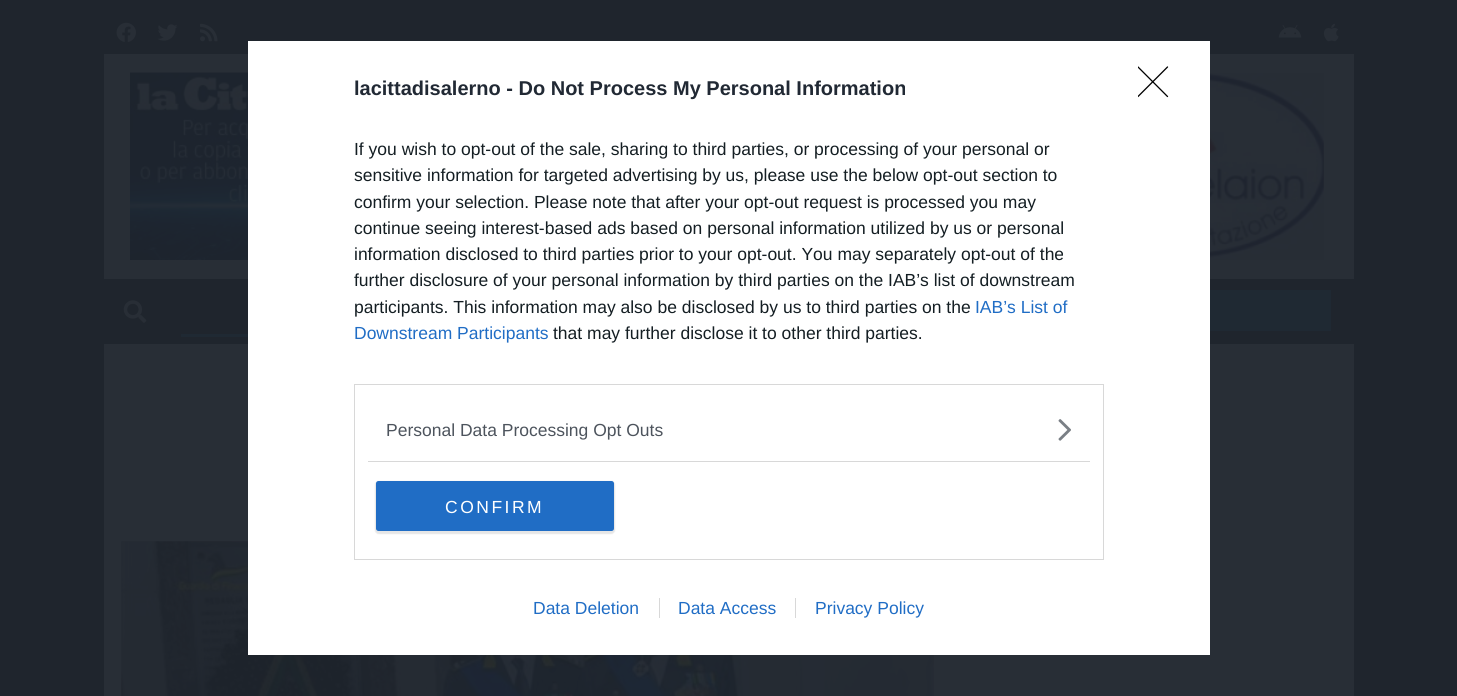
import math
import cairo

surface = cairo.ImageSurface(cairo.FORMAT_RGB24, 1457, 696)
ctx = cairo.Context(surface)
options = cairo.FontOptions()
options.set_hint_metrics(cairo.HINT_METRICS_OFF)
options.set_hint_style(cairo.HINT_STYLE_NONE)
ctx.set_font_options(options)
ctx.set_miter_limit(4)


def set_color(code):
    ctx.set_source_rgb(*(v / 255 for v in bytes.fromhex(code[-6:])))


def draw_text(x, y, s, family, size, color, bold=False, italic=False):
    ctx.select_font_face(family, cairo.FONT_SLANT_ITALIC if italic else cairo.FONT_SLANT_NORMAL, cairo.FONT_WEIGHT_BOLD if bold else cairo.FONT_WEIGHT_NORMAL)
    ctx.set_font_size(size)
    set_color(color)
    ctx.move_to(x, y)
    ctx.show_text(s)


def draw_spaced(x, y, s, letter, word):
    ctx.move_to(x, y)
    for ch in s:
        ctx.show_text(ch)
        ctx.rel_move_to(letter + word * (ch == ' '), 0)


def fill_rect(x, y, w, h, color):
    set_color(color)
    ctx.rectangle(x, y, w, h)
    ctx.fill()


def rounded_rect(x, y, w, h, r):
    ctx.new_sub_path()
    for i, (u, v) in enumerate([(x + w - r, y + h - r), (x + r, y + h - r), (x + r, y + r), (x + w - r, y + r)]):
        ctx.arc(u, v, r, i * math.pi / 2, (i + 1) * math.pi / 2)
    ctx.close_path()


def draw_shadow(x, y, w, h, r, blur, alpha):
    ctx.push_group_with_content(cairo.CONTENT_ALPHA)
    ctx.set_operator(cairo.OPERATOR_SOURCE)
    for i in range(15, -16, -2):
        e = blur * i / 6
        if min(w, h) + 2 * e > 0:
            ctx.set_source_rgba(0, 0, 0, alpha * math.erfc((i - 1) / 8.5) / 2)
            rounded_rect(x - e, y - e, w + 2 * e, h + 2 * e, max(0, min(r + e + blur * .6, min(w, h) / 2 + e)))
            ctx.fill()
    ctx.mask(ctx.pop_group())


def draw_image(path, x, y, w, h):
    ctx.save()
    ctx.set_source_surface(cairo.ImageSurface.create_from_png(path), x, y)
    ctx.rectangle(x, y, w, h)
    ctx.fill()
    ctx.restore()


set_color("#1f252d")
ctx.paint()
draw_image("assets/img1.png", 116, 22, 20, 20)
draw_image("assets/img2.png", 157, 24, 21, 17)
draw_image("assets/img3.png", 200, 23, 18, 19)
draw_image("assets/img4.png", 1278, 24, 24, 14)
draw_image("assets/img5.png", 1323, 23, 16, 19)
fill_rect(104, 54, 1250, 225, "#282e36")
draw_image("assets/img6.png", 130, 72, 118, 188)
draw_image("assets/img7.png", 1210, 72, 114, 188)
draw_image("assets/img8.png", 123, 300, 24, 23)
fill_rect(181, 334, 67, 3, "#1f2933")
fill_rect(1210, 290, 121, 41, "#1f2933")
fill_rect(104, 344, 1250, 352, "#282e36")
draw_image("assets/img9.png", 121, 541, 813, 155)
fill_rect(248, 41, 962, 614, "#ffffff")
draw_text(354, 95, "lacittadisalerno - Do Not Process My Personal Information", "Liberation Sans", 20, "#212934", bold=True)
draw_text(354, 155, "If you wish to opt-out of the sale, sharing to third parties, or processing of your personal or", "Liberation Sans", 17.5, "#141e23")
draw_text(354, 181, "sensitive information for targeted advertising by us, please use the below opt-out section to", "Liberation Sans", 17.5, "#141e23")
draw_text(354, 208, "confirm your selection. Please note that after your opt-out request is processed you may", "Liberation Sans", 17.5, "#141e23")
draw_text(354, 234, "continue seeing interest-based ads based on personal information utilized by us or personal", "Liberation Sans", 17.5, "#141e23")
draw_text(354, 260, "information disclosed to third parties prior to your opt-out. You may separately opt-out of the", "Liberation Sans", 17.5, "#141e23")
draw_text(354, 286, "further disclosure of your personal information by third parties on the IAB’s list of downstream", "Liberation Sans", 17.5, "#141e23")
draw_text(354, 313, "participants. This information may also be disclosed by us to third parties on the", "Liberation Sans", 17.5, "#141e23")
draw_text(975, 313, "IAB’s List of", "Liberation Sans", 17.5, "#206dc5")
draw_text(354, 339, "Downstream Participants", "Liberation Sans", 17.5, "#206dc5")
draw_text(553, 339, "that may further disclose it to other third parties.", "Liberation Sans", 17.5, "#141e23")
ctx.rectangle(354.5, 384.5, 749, 175)
set_color("#d8d8d8")
ctx.set_line_width(1)
ctx.stroke()
fill_rect(368, 461, 722, 1, "#d8d8d8")
draw_text(386, 436, "Personal Data Processing Opt Outs", "Liberation Sans", 17.5, "#4d545d")
draw_image("assets/img10.png", 1058, 419, 13, 22)
set_color("#000000")
draw_shadow(375, 481, 240, 53, 4, 0.5, 0.1)
set_color("#206dc5")
rounded_rect(376, 481, 238, 50, 2.5)
ctx.fill()
set_color("#ffffff")
draw_spaced(445, 513, "CONFIRM", 2.5, 0)
ctx.save()
ctx.rectangle(1138, 66, 31, 32)
ctx.clip()
ctx.new_path()
ctx.move_to(1138, 67)
ctx.line_to(1167.5, 96.5)
ctx.move_to(1167.5, 67)
ctx.line_to(1138, 96.5)
set_color("#000000")
ctx.set_line_width(1.3)
ctx.set_line_cap(cairo.LINE_CAP_ROUND)
ctx.set_line_join(cairo.LINE_JOIN_ROUND)
ctx.stroke()
ctx.restore()
draw_text(533, 614, "Data Deletion", "Liberation Sans", 17.5, "#206dc5")
draw_text(678, 614, "Data Access", "Liberation Sans", 17.5, "#206dc5")
fill_rect(659, 598, 1, 20, "#d8d8d8")
draw_text(815, 614, "Privacy Policy", "Liberation Sans", 17.5, "#206dc5")
fill_rect(795, 598, 1, 20, "#d8d8d8")
surface.write_to_png("output.png")
